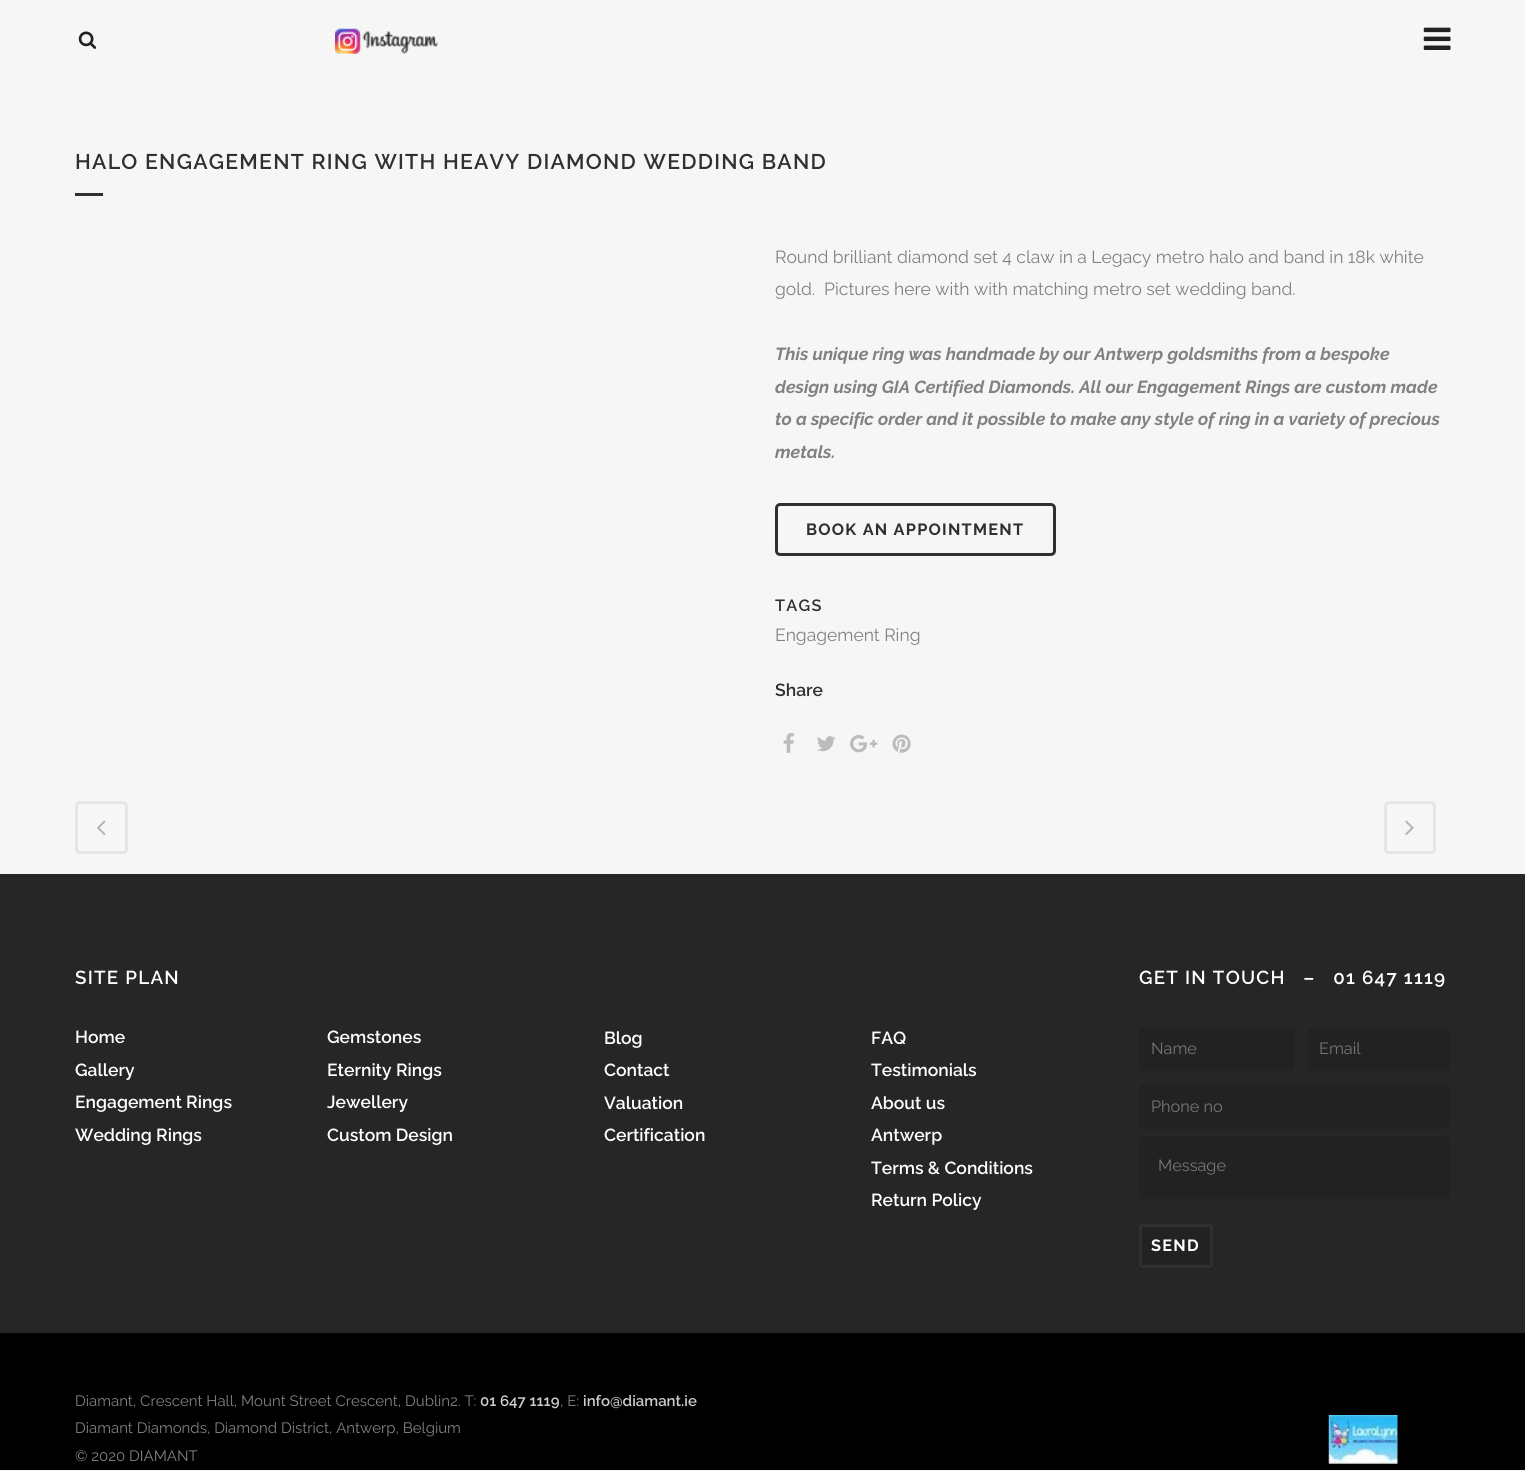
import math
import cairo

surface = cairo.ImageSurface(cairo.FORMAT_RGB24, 1525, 1471)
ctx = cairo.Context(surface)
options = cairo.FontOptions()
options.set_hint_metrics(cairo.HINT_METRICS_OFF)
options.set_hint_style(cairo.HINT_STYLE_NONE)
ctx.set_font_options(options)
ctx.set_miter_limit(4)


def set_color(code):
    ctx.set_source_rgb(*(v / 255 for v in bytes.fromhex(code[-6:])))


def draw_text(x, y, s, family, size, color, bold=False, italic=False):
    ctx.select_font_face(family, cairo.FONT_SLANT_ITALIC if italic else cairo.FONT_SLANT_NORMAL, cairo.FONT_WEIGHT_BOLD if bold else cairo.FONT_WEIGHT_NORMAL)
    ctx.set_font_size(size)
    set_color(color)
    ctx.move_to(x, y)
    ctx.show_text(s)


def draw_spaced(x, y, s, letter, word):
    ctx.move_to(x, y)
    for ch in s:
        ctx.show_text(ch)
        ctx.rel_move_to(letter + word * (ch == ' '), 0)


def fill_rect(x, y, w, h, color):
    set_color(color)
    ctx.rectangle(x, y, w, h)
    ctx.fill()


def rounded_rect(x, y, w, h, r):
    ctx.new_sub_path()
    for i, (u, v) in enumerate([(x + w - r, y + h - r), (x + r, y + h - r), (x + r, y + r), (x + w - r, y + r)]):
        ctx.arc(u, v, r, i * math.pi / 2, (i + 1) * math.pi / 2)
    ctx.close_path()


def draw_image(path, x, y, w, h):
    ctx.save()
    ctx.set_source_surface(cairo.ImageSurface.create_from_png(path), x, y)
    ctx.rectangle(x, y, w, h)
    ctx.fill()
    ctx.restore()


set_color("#f6f6f6")
ctx.paint()
draw_image("assets/img1.png", 78, 31, 19, 18)
draw_image("assets/img2.png", 335, 28, 103, 26)
draw_image("assets/img3.png", 1423, 27, 28, 23)
ctx.select_font_face("Raleway SemiBold")
ctx.set_font_size(21.25)
set_color("#303030")
draw_spaced(75, 169, "HALO ENGAGEMENT RING WITH HEAVY DIAMOND WEDDING BAND", 1.25, 0)
fill_rect(75, 193, 28, 3, "#303030")
draw_text(775, 263, "Round brilliant diamond set 4 claw in a Legacy metro halo and band in 18k white", "Raleway", 17.5, "#818181")
draw_text(775, 295, "gold.  Pictures here with with matching metro set wedding band.", "Raleway", 17.5, "#818181")
draw_text(775, 360, "This unique ring was handmade by our Antwerp goldsmiths from a bespoke", "Raleway", 17.5, "#818181", bold=True, italic=True)
draw_text(775, 393, "design using GIA Certified Diamonds. All our Engagement Rings are custom made", "Raleway", 17.5, "#818181", bold=True, italic=True)
draw_text(775, 425, "to a specific order and it possible to make any style of ring in a variety of precious", "Raleway", 17.5, "#818181", bold=True, italic=True)
draw_text(775, 458, "metals.", "Raleway", 17.5, "#818181", bold=True, italic=True)
rounded_rect(776.5, 504.5, 278, 50, 3.5)
set_color("#303030")
ctx.set_line_width(3)
ctx.stroke()
ctx.select_font_face("Raleway", cairo.FONT_SLANT_NORMAL, cairo.FONT_WEIGHT_BOLD)
ctx.set_font_size(16.25)
draw_spaced(806, 535, "BOOK AN APPOINTMENT", 1.25, 0)
ctx.select_font_face("Raleway SemiBold")
draw_spaced(775, 611, "TAGS", 1.25, 0)
draw_text(775, 641, "Engagement Ring", "Raleway", 17.5, "#818181")
draw_text(775, 696, "Share", "Raleway SemiBold", 17.5, "#303030")
draw_image("assets/img4.png", 783, 733, 11, 20)
draw_image("assets/img5.png", 817, 736, 19, 16)
draw_image("assets/img6.png", 850, 735, 28, 18)
draw_image("assets/img7.png", 892, 734, 19, 19)
rounded_rect(76.5, 802.5, 50, 50, 3.5)
set_color("#e5e5e5")
ctx.stroke()
draw_image("assets/img8.png", 97, 820, 9, 15)
rounded_rect(1385.5, 802.5, 49, 50, 3.5)
ctx.stroke()
draw_image("assets/img9.png", 1405, 820, 9, 15)
fill_rect(0, 874, 1525, 459, "#262626")
ctx.set_font_size(18.75)
set_color("#ffffff")
draw_spaced(75, 984, "SITE PLAN", 1.25, 0)
draw_text(75, 1043, "Home", "Raleway SemiBold", 17.5, "#ffffff")
draw_text(75, 1076, "Gallery", "Raleway SemiBold", 17.5, "#ffffff")
draw_text(75, 1108, "Engagement Rings", "Raleway SemiBold", 17.5, "#ffffff")
draw_text(75, 1141, "Wedding Rings", "Raleway SemiBold", 17.5, "#ffffff")
draw_text(327, 1043, "Gemstones", "Raleway SemiBold", 17.5, "#ffffff")
draw_text(327, 1076, "Eternity Rings", "Raleway SemiBold", 17.5, "#ffffff")
draw_text(327, 1108, "Jewellery", "Raleway SemiBold", 17.5, "#ffffff")
draw_text(327, 1141, "Custom Design", "Raleway SemiBold", 17.5, "#ffffff")
draw_text(604, 1044, "Blog", "Raleway SemiBold", 17.5, "#ffffff")
draw_text(604, 1076, "Contact", "Raleway SemiBold", 17.5, "#ffffff")
draw_text(604, 1109, "Valuation", "Raleway SemiBold", 17.5, "#ffffff")
draw_text(604, 1141, "Certification", "Raleway SemiBold", 17.5, "#ffffff")
draw_text(871, 1044, "FAQ", "Raleway SemiBold", 17.5, "#ffffff")
draw_text(871, 1076, "Testimonials", "Raleway SemiBold", 17.5, "#ffffff")
draw_text(871, 1109, "About us", "Raleway SemiBold", 17.5, "#ffffff")
draw_text(871, 1141, "Antwerp", "Raleway SemiBold", 17.5, "#ffffff")
draw_text(871, 1174, "Terms & Conditions", "Raleway SemiBold", 17.5, "#ffffff")
draw_text(871, 1206, "Return Policy", "Raleway SemiBold", 17.5, "#ffffff")
ctx.set_font_size(18.75)
draw_spaced(1139, 984, "GET IN TOUCH   –   01 647 1119", 1.25, 0)
set_color("#222222")
rounded_rect(1139, 1028, 156, 43, 4)
ctx.fill()
draw_text(1151, 1054, "Name", "Raleway", 16.25, "#757575")
set_color("#222222")
rounded_rect(1308, 1028, 142, 43, 4)
ctx.fill()
draw_text(1319, 1054, "Email", "Raleway", 16.25, "#757575")
set_color("#222222")
rounded_rect(1139, 1085, 311, 44, 4)
ctx.fill()
draw_text(1151, 1112, "Phone no", "Raleway", 16.25, "#757575")
set_color("#222222")
rounded_rect(1139, 1136, 311, 63, 4)
ctx.fill()
draw_text(1158, 1171, "Message", "Raleway", 16.25, "#757575")
set_color("#222222")
rounded_rect(1140.5, 1225.5, 71, 41, 2.5)
ctx.fill_preserve()
set_color("#303030")
ctx.stroke()
ctx.select_font_face("Raleway", cairo.FONT_SLANT_NORMAL, cairo.FONT_WEIGHT_BOLD)
set_color("#ffffff")
draw_spaced(1151, 1251, "SEND", 1.25, 0)
fill_rect(0, 1333, 1525, 137, "#000000")
draw_text(75, 1406, "Diamant, Crescent Hall, Mount Street Crescent, Dublin2. T:", "Raleway", 15, "#818181")
draw_text(480, 1406, "01 647 1119", "Raleway SemiBold", 15, "#cccccc")
draw_text(560, 1406, ", E:", "Raleway", 15, "#818181")
draw_text(583, 1406, "info@diamant.ie", "Raleway SemiBold", 15, "#cccccc")
draw_text(75, 1433, "Diamant Diamonds, Diamond District, Antwerp, Belgium", "Raleway", 15, "#818181")
draw_text(75, 1461, "© 2020 DIAMANT", "Raleway", 15, "#818181")
draw_image("assets/img10.png", 1328, 1415, 70, 49)
surface.write_to_png("output.png")
